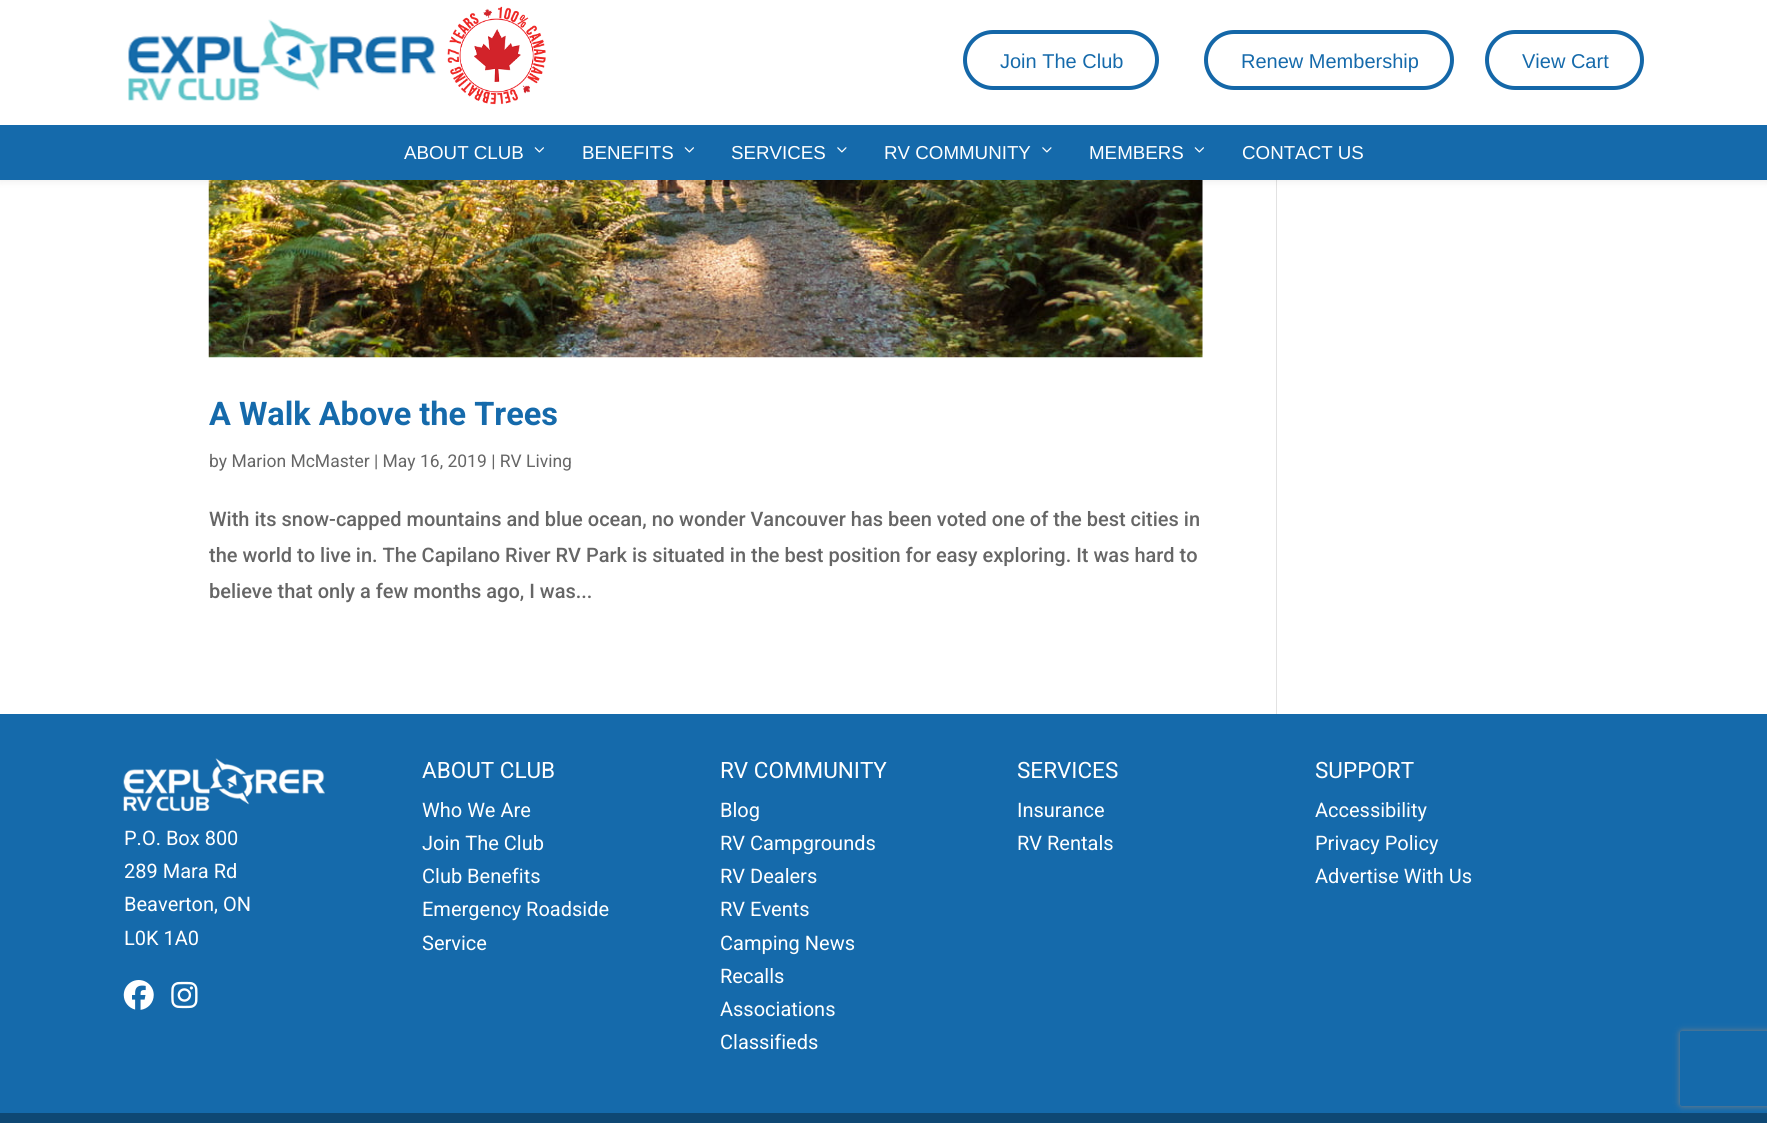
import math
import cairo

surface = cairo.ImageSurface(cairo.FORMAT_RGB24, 1767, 1123)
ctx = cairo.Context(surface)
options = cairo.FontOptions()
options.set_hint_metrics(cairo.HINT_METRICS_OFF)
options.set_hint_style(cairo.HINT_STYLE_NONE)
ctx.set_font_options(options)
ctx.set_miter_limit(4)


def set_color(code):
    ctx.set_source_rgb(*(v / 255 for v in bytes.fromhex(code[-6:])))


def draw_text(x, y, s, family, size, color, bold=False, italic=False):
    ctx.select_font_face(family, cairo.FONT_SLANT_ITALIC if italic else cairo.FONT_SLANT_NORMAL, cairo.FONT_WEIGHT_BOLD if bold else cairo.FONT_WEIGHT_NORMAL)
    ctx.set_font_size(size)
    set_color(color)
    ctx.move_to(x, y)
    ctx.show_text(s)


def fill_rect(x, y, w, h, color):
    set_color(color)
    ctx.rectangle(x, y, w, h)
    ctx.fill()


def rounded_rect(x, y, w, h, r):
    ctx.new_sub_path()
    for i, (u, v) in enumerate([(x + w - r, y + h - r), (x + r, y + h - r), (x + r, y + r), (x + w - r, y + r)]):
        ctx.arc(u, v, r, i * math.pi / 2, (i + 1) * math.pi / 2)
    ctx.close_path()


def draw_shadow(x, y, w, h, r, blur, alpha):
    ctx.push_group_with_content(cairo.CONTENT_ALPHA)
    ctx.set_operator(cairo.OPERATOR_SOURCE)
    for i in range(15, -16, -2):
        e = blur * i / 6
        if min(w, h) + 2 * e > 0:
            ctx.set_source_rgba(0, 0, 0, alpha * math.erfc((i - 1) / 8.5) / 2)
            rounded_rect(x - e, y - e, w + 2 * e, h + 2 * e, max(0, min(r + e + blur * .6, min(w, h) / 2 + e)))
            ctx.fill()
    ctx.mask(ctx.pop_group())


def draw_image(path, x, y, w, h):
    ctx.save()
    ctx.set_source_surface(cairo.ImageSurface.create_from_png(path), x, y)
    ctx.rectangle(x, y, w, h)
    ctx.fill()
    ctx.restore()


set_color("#ffffff")
ctx.paint()
draw_image("assets/img5.png", 208, 180, 995, 178)
fill_rect(1276, 180, 1, 534, "#e2e2e2")
set_color("#000000")
draw_shadow(0, 0, 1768, 180, 0, 4.5, 0.1)
fill_rect(0, 0, 1767, 125, "#ffffff")
draw_image("assets/img1.png", 128, 19, 308, 82)
draw_image("assets/img2.png", 447, 6, 99, 99)
rounded_rect(965, 32, 192, 56, 28)
set_color("#1467a8")
ctx.set_line_width(4)
ctx.stroke()
draw_text(1000, 68, "Join The Club", "Liberation Sans", 20, "#156aab")
rounded_rect(1206, 32, 246, 56, 28)
set_color("#1467a8")
ctx.stroke()
draw_text(1241, 68, "Renew Membership", "Liberation Sans", 20, "#156aab")
rounded_rect(1487, 32, 155, 56, 28)
set_color("#1467a8")
ctx.stroke()
draw_text(1522, 68, "View Cart", "Liberation Sans", 20, "#156aab")
fill_rect(0, 125, 1767, 55, "#156aab")
draw_text(404, 159, "ABOUT CLUB", "Liberation Sans", 18.75, "#ffffff")
draw_image("assets/img3.png", 534, 147, 10, 6)
draw_text(582, 159, "BENEFITS", "Liberation Sans", 18.75, "#ffffff")
draw_image("assets/img3.png", 684, 147, 10, 6)
draw_text(731, 159, "SERVICES", "Liberation Sans", 18.75, "#ffffff")
draw_image("assets/img4.png", 837, 147, 10, 6)
draw_text(884, 159, "RV COMMUNITY", "Liberation Sans", 18.75, "#ffffff")
draw_image("assets/img4.png", 1042, 147, 10, 6)
draw_text(1089, 159, "MEMBERS", "Liberation Sans", 18.75, "#ffffff")
draw_image("assets/img3.png", 1194, 147, 10, 6)
draw_text(1242, 159, "CONTACT US", "Liberation Sans", 18.75, "#ffffff")
draw_text(209, 425, "A Walk Above the Trees", "Roboto", 32.5, "#156aab", bold=True)
draw_text(209, 467, "by Marion McMaster | May 16, 2019 | RV Living", "Roboto", 17.5, "#666666")
draw_text(209, 526, "With its snow-capped mountains and blue ocean, no wonder Vancouver has been voted one of the best cities in", "Roboto Medium", 20, "#666666")
draw_text(209, 562, "the world to live in. The Capilano River RV Park is situated in the best position for easy exploring. It was hard to", "Roboto Medium", 20, "#666666")
draw_text(209, 598, "believe that only a few months ago, I was...", "Roboto Medium", 20, "#666666")
fill_rect(0, 714, 1767, 399, "#156aab")
draw_image("assets/img6.png", 123, 758, 202, 53)
draw_text(124, 845, "P.O. Box 800", "Roboto", 20, "#ffffff")
draw_text(124, 878, "289 Mara Rd", "Roboto", 20, "#ffffff")
draw_text(124, 911, "Beaverton, ON", "Roboto", 20, "#ffffff")
draw_text(124, 945, "L0K 1A0", "Roboto", 20, "#ffffff")
draw_image("assets/img7.png", 123, 980, 31, 30)
draw_image("assets/img8.png", 171, 981, 27, 28)
draw_text(422, 778, "ABOUT CLUB", "Roboto", 22.5, "#ffffff")
draw_text(422, 817, "Who We Are", "Roboto", 20, "#ffffff")
draw_text(422, 850, "Join The Club", "Roboto", 20, "#ffffff")
draw_text(422, 883, "Club Benefits", "Roboto", 20, "#ffffff")
draw_text(422, 916, "Emergency Roadside", "Roboto", 20, "#ffffff")
draw_text(422, 950, "Service", "Roboto", 20, "#ffffff")
draw_text(720, 778, "RV COMMUNITY", "Roboto", 22.5, "#ffffff")
draw_text(720, 817, "Blog", "Roboto", 20, "#ffffff")
draw_text(720, 850, "RV Campgrounds", "Roboto", 20, "#ffffff")
draw_text(720, 883, "RV Dealers", "Roboto", 20, "#ffffff")
draw_text(720, 916, "RV Events", "Roboto", 20, "#ffffff")
draw_text(720, 950, "Camping News", "Roboto", 20, "#ffffff")
draw_text(720, 983, "Recalls", "Roboto", 20, "#ffffff")
draw_text(720, 1016, "Associations", "Roboto", 20, "#ffffff")
draw_text(720, 1049, "Classifieds", "Roboto", 20, "#ffffff")
draw_text(1017, 778, "SERVICES", "Roboto", 22.5, "#ffffff")
draw_text(1017, 817, "Insurance", "Roboto", 20, "#ffffff")
draw_text(1017, 850, "RV Rentals", "Roboto", 20, "#ffffff")
draw_text(1315, 778, "SUPPORT", "Roboto", 22.5, "#ffffff")
draw_text(1315, 817, "Accessibility", "Roboto", 20, "#ffffff")
draw_text(1315, 850, "Privacy Policy", "Roboto", 20, "#ffffff")
draw_text(1315, 883, "Advertise With Us", "Roboto", 20, "#ffffff")
fill_rect(0, 1113, 1767, 10, "#0e4874")
ctx.save()
ctx.set_fill_rule(cairo.FILL_RULE_EVEN_ODD)
ctx.new_path()
ctx.move_to(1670, 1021)
ctx.line_to(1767, 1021)
ctx.line_to(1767, 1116)
ctx.line_to(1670, 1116)
ctx.close_path()
ctx.move_to(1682.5, 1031)
ctx.line_to(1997.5, 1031)
ctx.curve_to(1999, 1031, 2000, 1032, 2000, 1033.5)
ctx.line_to(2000, 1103.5)
ctx.curve_to(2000, 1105, 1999, 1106, 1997.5, 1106)
ctx.line_to(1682.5, 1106)
ctx.curve_to(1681, 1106, 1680, 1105, 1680, 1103.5)
ctx.line_to(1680, 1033.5)
ctx.curve_to(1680, 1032, 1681, 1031, 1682.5, 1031)
ctx.close_path()
ctx.clip()
set_color("#808080")
draw_shadow(1680, 1031, 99, 75, 2.5, 3, 1)
ctx.restore()
surface.write_to_png("output.png")
